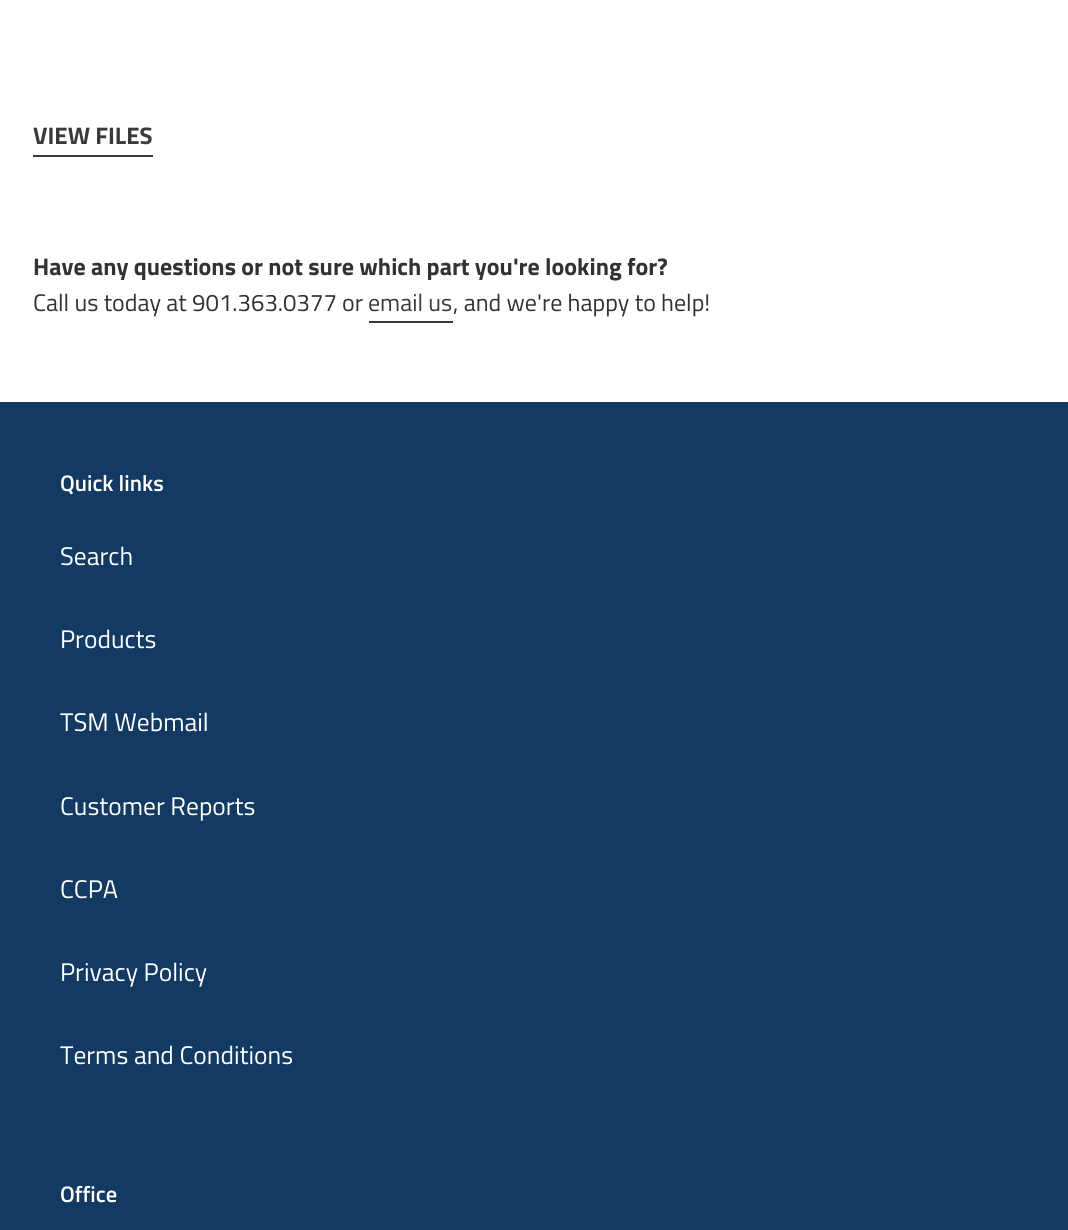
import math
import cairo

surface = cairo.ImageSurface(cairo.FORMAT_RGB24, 1068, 1230)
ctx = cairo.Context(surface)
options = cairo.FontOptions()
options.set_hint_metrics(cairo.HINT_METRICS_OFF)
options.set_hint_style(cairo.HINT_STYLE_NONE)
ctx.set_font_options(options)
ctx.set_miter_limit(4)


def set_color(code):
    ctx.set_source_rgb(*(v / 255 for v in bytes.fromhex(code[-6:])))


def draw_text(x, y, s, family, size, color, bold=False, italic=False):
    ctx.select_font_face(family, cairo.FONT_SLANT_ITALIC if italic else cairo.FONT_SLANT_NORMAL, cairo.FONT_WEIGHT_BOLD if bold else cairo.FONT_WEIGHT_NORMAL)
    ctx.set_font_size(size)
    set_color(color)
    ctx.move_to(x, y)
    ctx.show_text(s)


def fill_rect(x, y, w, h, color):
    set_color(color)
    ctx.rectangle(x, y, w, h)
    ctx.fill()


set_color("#ffffff")
ctx.paint()
draw_text(33, 144, "VIEW FILES", "Titillium Web", 24, "#3a3a3a", bold=True)
fill_rect(33, 155, 120, 2, "#3a3a3a")
draw_text(33, 275, "Have any questions or not sure which part you're looking for?", "Titillium Web", 24, "#333232", bold=True)
draw_text(33, 311, "Call us today at 901.363.0377 or", "Titillium Web", 24, "#333232")
draw_text(368, 311, "email us", "Titillium Web", 24, "#3a3a3a")
fill_rect(369, 321, 84, 2, "#3a3a3a")
draw_text(453, 311, ", and we're happy to help!", "Titillium Web", 24, "#333232")
fill_rect(0, 402, 1068, 828, "#123a62")
draw_text(60, 491, "Quick links", "Titillium Web SemiBold", 22.5, "#ffffff")
draw_text(60, 565, "Search", "Titillium Web", 25.5, "#ffffff")
draw_text(60, 648, "Products", "Titillium Web", 25.5, "#ffffff")
draw_text(60, 731, "TSM Webmail", "Titillium Web", 25.5, "#ffffff")
draw_text(60, 815, "Customer Reports", "Titillium Web", 25.5, "#ffffff")
draw_text(60, 898, "CCPA", "Titillium Web", 25.5, "#ffffff")
draw_text(60, 981, "Privacy Policy", "Titillium Web", 25.5, "#ffffff")
draw_text(60, 1064, "Terms and Conditions", "Titillium Web", 25.5, "#ffffff")
draw_text(60, 1202, "Office", "Titillium Web SemiBold", 22.5, "#ffffff")
surface.write_to_png("output.png")
